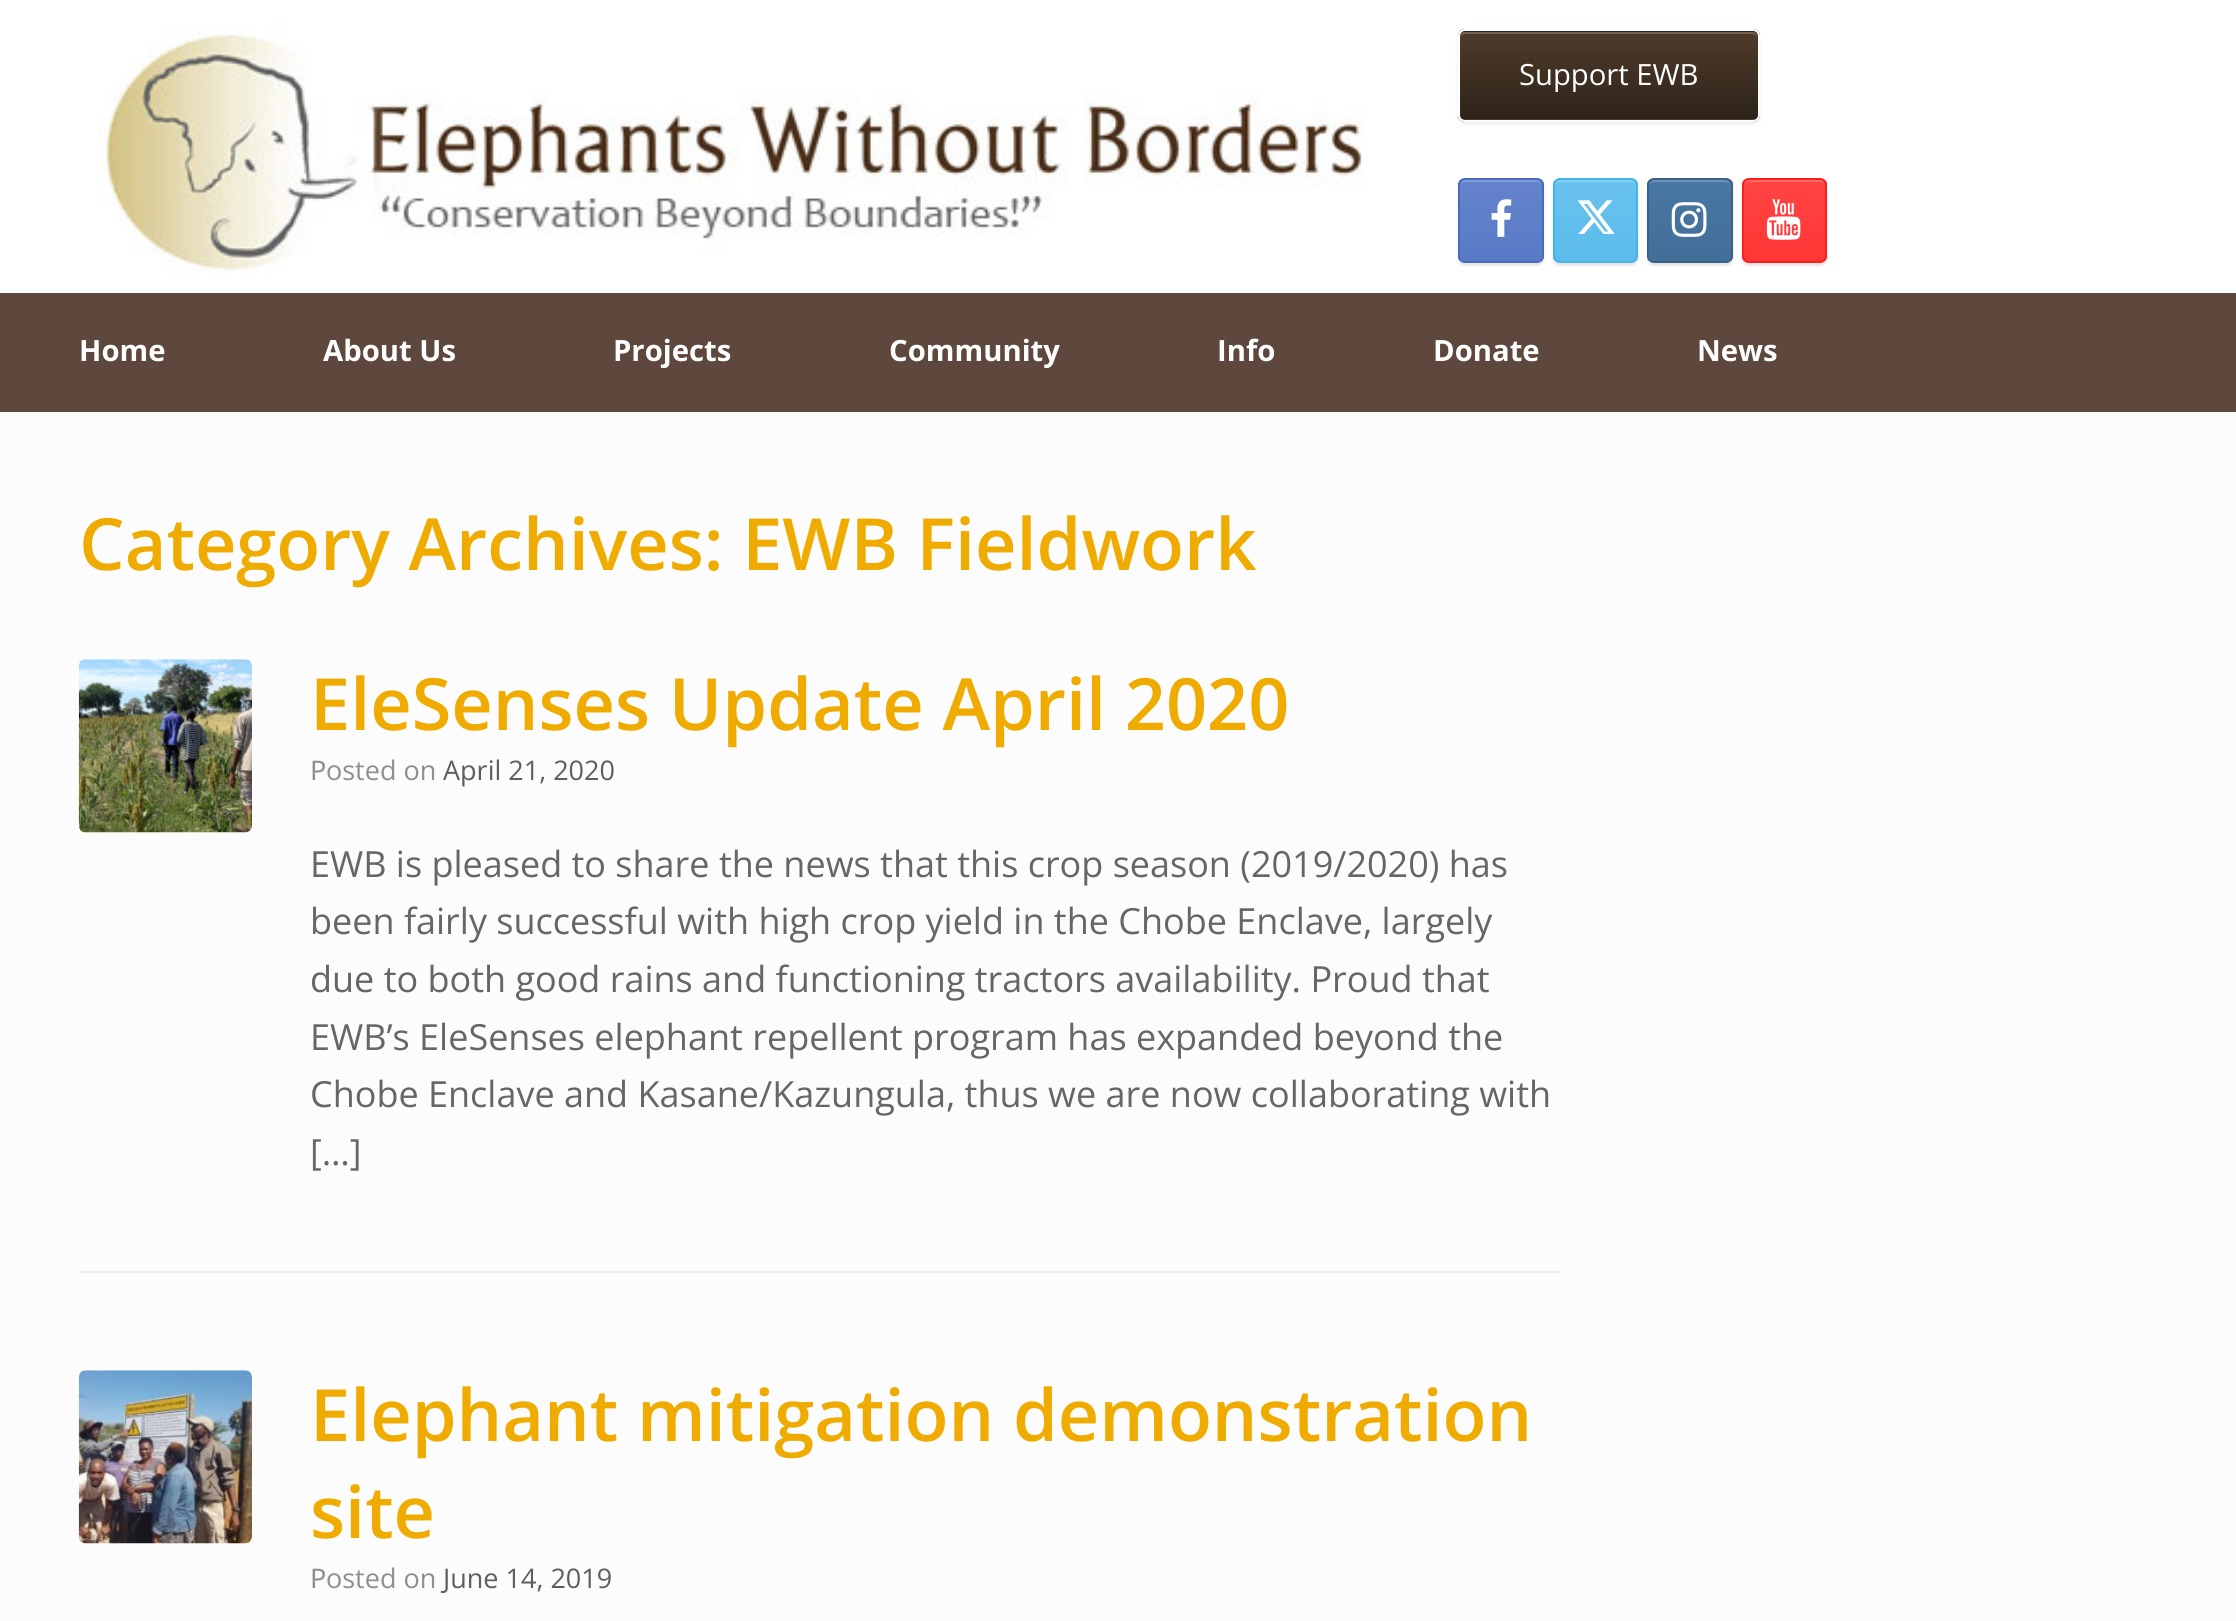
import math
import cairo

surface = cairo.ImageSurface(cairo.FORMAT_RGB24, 2236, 1621)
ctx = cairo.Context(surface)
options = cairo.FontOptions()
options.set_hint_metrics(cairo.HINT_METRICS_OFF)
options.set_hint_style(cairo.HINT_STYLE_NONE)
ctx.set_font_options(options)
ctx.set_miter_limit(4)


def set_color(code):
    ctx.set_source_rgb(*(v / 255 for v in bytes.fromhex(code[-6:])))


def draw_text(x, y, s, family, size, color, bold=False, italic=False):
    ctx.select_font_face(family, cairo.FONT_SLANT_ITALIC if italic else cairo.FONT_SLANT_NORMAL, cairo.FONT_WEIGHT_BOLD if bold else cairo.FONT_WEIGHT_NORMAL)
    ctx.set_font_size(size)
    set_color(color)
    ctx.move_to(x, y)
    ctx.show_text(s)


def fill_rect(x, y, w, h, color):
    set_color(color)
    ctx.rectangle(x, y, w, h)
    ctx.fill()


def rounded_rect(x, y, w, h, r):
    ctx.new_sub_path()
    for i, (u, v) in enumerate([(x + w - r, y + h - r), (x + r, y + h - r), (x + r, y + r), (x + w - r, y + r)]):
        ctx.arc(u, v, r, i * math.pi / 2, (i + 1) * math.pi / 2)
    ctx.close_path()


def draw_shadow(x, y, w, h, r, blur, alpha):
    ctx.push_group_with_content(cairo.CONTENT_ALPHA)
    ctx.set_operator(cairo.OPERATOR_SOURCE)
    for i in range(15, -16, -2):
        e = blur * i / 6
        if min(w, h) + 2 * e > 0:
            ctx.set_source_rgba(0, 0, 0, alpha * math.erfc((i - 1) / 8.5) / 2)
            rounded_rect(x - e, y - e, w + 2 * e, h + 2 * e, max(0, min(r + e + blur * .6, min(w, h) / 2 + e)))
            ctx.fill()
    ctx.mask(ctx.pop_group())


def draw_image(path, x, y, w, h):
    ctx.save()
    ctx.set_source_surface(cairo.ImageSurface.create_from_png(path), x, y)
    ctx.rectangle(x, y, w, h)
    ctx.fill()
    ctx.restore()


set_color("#ffffff")
ctx.paint()
draw_image("assets/img1.png", 96, 29, 1267, 244)
set_color("#000000")
draw_shadow(1458, 32, 302, 92, 7, 2, 0.07)
ctx.save()
rounded_rect(1458, 29, 302, 93, 7)
ctx.clip()
gradient = cairo.LinearGradient(1460, 32, 1460, -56)
gradient.add_color_stop_rgba(0, 0.18, 0.137, 0.098, 1)
gradient.add_color_stop_rgba(1, 0.31, 0.235, 0.169, 1)
ctx.set_source(gradient)
ctx.rectangle(1458, 29, 302, 3)
ctx.fill()
gradient = cairo.LinearGradient(1460, 119, 1460, 32)
gradient.add_color_stop_rgba(0, 0.18, 0.137, 0.098, 1)
gradient.add_color_stop_rgba(1, 0.31, 0.235, 0.169, 1)
ctx.set_source(gradient)
ctx.rectangle(1458, 32, 302, 87)
ctx.fill()
gradient = cairo.LinearGradient(1460, 207, 1460, 119)
gradient.add_color_stop_rgba(0, 0.18, 0.137, 0.098, 1)
gradient.add_color_stop_rgba(1, 0.31, 0.235, 0.169, 1)
ctx.set_source(gradient)
ctx.rectangle(1458, 119, 302, 3)
ctx.fill()
ctx.restore()
set_color("#726355")
ctx.new_path()
ctx.move_to(1465, 34)
ctx.line_to(1752, 34)
ctx.curve_to(1755, 34, 1757, 36, 1757, 39)
ctx.curve_to(1757, 36, 1756, 32, 1752, 32)
ctx.line_to(1465, 32)
ctx.curve_to(1461, 32, 1460, 36, 1460, 39)
ctx.curve_to(1460, 36, 1463, 34, 1465, 34)
ctx.close_path()
ctx.fill()
rounded_rect(1459, 30, 300, 91, 6)
set_color("#ffffff")
ctx.stroke()
draw_text(1519, 85, "Support EWB", "Open Sans", 29.25, "#ffffff")
set_color("#000000")
draw_shadow(1458, 180, 86, 86, 7, 1, 0.1)
ctx.save()
rounded_rect(1458, 178, 86, 85, 7)
ctx.clip()
gradient = cairo.LinearGradient(1501, 261, 1501, 180)
gradient.add_color_stop_rgba(0, 0.349, 0.478, 0.78, 1)
gradient.add_color_stop_rgba(1, 0.392, 0.514, 0.796, 1)
ctx.set_source(gradient)
ctx.rectangle(1458, 180, 86, 81)
ctx.fill()
ctx.restore()
set_color("#839cd5")
ctx.new_path()
ctx.move_to(1465, 182)
ctx.line_to(1537, 182)
ctx.curve_to(1539, 182, 1541, 184, 1541, 187)
ctx.curve_to(1541, 177, 1532, 180, 1524, 180)
ctx.line_to(1477, 180)
ctx.curve_to(1469, 180, 1460, 177, 1460, 187)
ctx.curve_to(1460, 184, 1462, 182, 1465, 182)
ctx.close_path()
ctx.fill()
rounded_rect(1459, 179, 84, 83, 6)
set_color("#466bc1")
ctx.stroke()
draw_image("assets/img2.png", 1491, 199, 21, 38)
set_color("#000000")
draw_shadow(1553, 180, 85, 86, 7, 1, 0.1)
ctx.save()
rounded_rect(1553, 178, 85, 85, 7)
ctx.clip()
gradient = cairo.LinearGradient(1595, 261, 1595, 180)
gradient.add_color_stop_rgba(0, 0.357, 0.737, 0.925, 1)
gradient.add_color_stop_rgba(1, 0.412, 0.761, 0.933, 1)
ctx.set_source(gradient)
ctx.rectangle(1553, 180, 85, 81)
ctx.fill()
ctx.restore()
set_color("#87cef1")
ctx.new_path()
ctx.move_to(1559, 182)
ctx.line_to(1631, 182)
ctx.curve_to(1634, 182, 1636, 184, 1636, 187)
ctx.curve_to(1636, 177, 1627, 180, 1619, 180)
ctx.line_to(1572, 180)
ctx.curve_to(1564, 180, 1555, 177, 1555, 187)
ctx.curve_to(1555, 184, 1557, 182, 1559, 182)
ctx.close_path()
ctx.fill()
rounded_rect(1554, 179, 83, 83, 6)
set_color("#44b3e9")
ctx.stroke()
draw_image("assets/img3.png", 1577, 200, 38, 34)
set_color("#000000")
draw_shadow(1647, 180, 86, 86, 7, 1, 0.1)
ctx.save()
rounded_rect(1647, 178, 86, 85, 7)
ctx.clip()
gradient = cairo.LinearGradient(1690, 261, 1690, 180)
gradient.add_color_stop_rgba(0, 0.259, 0.435, 0.596, 1)
gradient.add_color_stop_rgba(1, 0.278, 0.467, 0.639, 1)
ctx.set_source(gradient)
ctx.rectangle(1647, 180, 86, 81)
ctx.fill()
ctx.restore()
set_color("#6c92b5")
ctx.new_path()
ctx.move_to(1654, 182)
ctx.line_to(1726, 182)
ctx.curve_to(1728, 182, 1730, 184, 1730, 187)
ctx.curve_to(1730, 177, 1721, 180, 1713, 180)
ctx.line_to(1666, 180)
ctx.curve_to(1658, 180, 1649, 177, 1649, 187)
ctx.curve_to(1649, 184, 1651, 182, 1654, 182)
ctx.close_path()
ctx.fill()
rounded_rect(1648, 179, 84, 83, 6)
set_color("#3a6286")
ctx.stroke()
draw_image("assets/img4.png", 1671, 202, 36, 35)
set_color("#000000")
draw_shadow(1742, 180, 85, 86, 7, 1, 0.1)
ctx.save()
rounded_rect(1742, 178, 85, 85, 7)
ctx.clip()
gradient = cairo.LinearGradient(1784, 261, 1784, 180)
gradient.add_color_stop_rgba(0, 1, 0.212, 0.208, 1)
gradient.add_color_stop_rgba(1, 1, 0.271, 0.267, 1)
ctx.set_source(gradient)
ctx.rectangle(1742, 180, 85, 81)
ctx.fill()
ctx.restore()
set_color("#ff6a69")
ctx.new_path()
ctx.move_to(1748, 182)
ctx.line_to(1820, 182)
ctx.curve_to(1823, 182, 1825, 184, 1825, 187)
ctx.curve_to(1825, 177, 1816, 180, 1808, 180)
ctx.line_to(1761, 180)
ctx.curve_to(1753, 180, 1744, 177, 1744, 187)
ctx.curve_to(1744, 184, 1746, 182, 1748, 182)
ctx.close_path()
ctx.fill()
rounded_rect(1743, 179, 83, 83, 6)
set_color("#ff1d1b")
ctx.stroke()
draw_image("assets/img5.png", 1766, 199, 35, 41)
fill_rect(0, 293, 2236, 119, "#5e473d")
draw_text(79, 361, "Home", "Open Sans", 29.25, "#ffffff", bold=True)
draw_text(323, 361, "About Us", "Open Sans", 29.25, "#ffffff", bold=True)
draw_text(613, 361, "Projects", "Open Sans", 29.25, "#ffffff", bold=True)
draw_text(889, 361, "Community", "Open Sans", 29.25, "#ffffff", bold=True)
draw_text(1217, 361, "Info", "Open Sans", 29.25, "#ffffff", bold=True)
draw_text(1433, 361, "Donate", "Open Sans", 29.25, "#ffffff", bold=True)
draw_text(1697, 361, "News", "Open Sans", 29.25, "#ffffff", bold=True)
fill_rect(0, 412, 2236, 1209, "#fcfcfc")
draw_text(79, 570, "Category Archives: EWB Fieldwork", "Open Sans SemiBold", 72, "#efab00")
fill_rect(79, 1271, 1483, 2, "#eeeeee")
draw_image("assets/img6.png", 78, 659, 174, 174)
draw_text(310, 730, "EleSenses Update April 2020", "Open Sans SemiBold", 72, "#efab00")
draw_text(310, 780, "P", "Noto Sans", 27, "#8f8f8f")
draw_text(326, 780, "osted on", "Open Sans", 27, "#8f8f8f")
draw_text(443, 780, "April 21, 2020", "Open Sans", 27, "#5e5e5e")
draw_text(310, 877, "EWB is pleased to share the news that this crop season (2019/2020) has", "Open Sans", 36, "#666666")
draw_text(310, 934, "been fairly successful with high crop yield in the Chobe Enclave, largely", "Open Sans", 36, "#666666")
draw_text(310, 992, "due to both good rains and functioning tractors availability. Proud that", "Open Sans", 36, "#666666")
draw_text(310, 1050, "EWB’s EleSenses elephant repellent program has expanded beyond the", "Open Sans", 36, "#666666")
draw_text(310, 1107, "Chobe Enclave and Kasane/Kazungula, thus we are now collaborating with", "Open Sans", 36, "#666666")
draw_text(310, 1165, "[…]", "Open Sans", 36, "#666666")
draw_image("assets/img7.png", 78, 1370, 174, 174)
draw_text(310, 1441, "Elephant mitigation demonstration", "Open Sans SemiBold", 72, "#efab00")
draw_text(310, 1538, "site", "Open Sans SemiBold", 72, "#efab00")
draw_text(310, 1588, "P", "Noto Sans", 27, "#8f8f8f")
draw_text(326, 1588, "osted on", "Open Sans", 27, "#8f8f8f")
draw_text(443, 1588, "June 14, 2019", "Open Sans", 27, "#5e5e5e")
surface.write_to_png("output.png")
